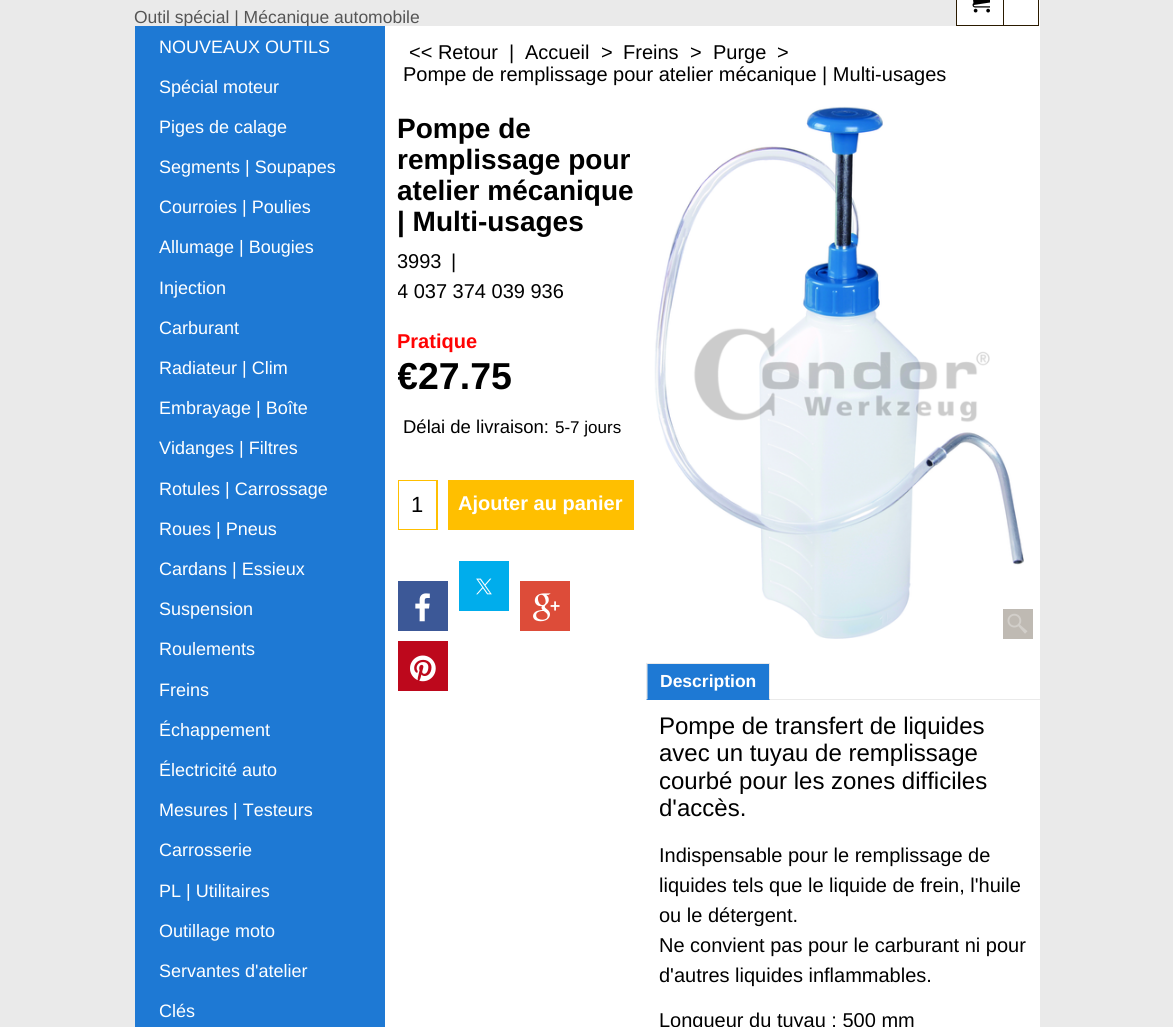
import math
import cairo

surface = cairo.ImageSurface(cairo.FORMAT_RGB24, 1173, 1027)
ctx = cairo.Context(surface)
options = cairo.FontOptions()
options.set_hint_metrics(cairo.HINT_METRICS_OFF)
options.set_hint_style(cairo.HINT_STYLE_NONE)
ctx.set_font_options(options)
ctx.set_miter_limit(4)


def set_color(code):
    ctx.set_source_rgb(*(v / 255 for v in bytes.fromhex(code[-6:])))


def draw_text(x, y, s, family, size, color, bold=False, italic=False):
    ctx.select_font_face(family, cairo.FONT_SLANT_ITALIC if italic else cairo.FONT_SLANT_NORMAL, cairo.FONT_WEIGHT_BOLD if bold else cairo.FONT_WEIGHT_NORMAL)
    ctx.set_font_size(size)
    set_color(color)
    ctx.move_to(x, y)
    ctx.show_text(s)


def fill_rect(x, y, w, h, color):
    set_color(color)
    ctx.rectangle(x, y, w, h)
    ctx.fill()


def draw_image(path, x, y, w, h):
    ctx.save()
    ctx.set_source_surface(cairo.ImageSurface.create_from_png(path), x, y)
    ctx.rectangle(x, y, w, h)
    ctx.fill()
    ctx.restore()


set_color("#eaeaea")
ctx.paint()
draw_text(134, 23, "Outil spécial | Mécanique automobile", "Liberation Sans", 17.5, "#555555")
fill_rect(957, 0, 83, 26, "#ffffff")
ctx.rectangle(956.5, -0.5, 47, 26)
set_color("#2a1a00")
ctx.set_line_width(1)
ctx.stroke()
draw_image("assets/img1.png", 972, 0, 18, 13)
ctx.rectangle(1003.5, -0.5, 35, 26)
ctx.stroke()
fill_rect(135, 26, 250, 1001, "#1e79d4")
draw_text(159, 53, "NOUVEAUX OUTILS", "Liberation Sans", 18, "#ffffff")
draw_text(159, 93, "Spécial moteur", "Liberation Sans", 18, "#ffffff")
draw_text(159, 133, "Piges de calage", "Liberation Sans", 18, "#ffffff")
draw_text(159, 173, "Segments | Soupapes", "Liberation Sans", 18, "#ffffff")
draw_text(159, 213, "Courroies | Poulies", "Liberation Sans", 18, "#ffffff")
draw_text(159, 253, "Allumage | Bougies", "Liberation Sans", 18, "#ffffff")
draw_text(159, 294, "Injection", "Liberation Sans", 18, "#ffffff")
draw_text(159, 334, "Carburant", "Liberation Sans", 18, "#ffffff")
draw_text(159, 374, "Radiateur | Clim", "Liberation Sans", 18, "#ffffff")
draw_text(159, 414, "Embrayage | Boîte", "Liberation Sans", 18, "#ffffff")
draw_text(159, 454, "Vidanges | Filtres", "Liberation Sans", 18, "#ffffff")
draw_text(159, 495, "Rotules | Carrossage", "Liberation Sans", 18, "#ffffff")
draw_text(159, 535, "Roues | Pneus", "Liberation Sans", 18, "#ffffff")
draw_text(159, 575, "Cardans | Essieux", "Liberation Sans", 18, "#ffffff")
draw_text(159, 615, "Suspension", "Liberation Sans", 18, "#ffffff")
draw_text(159, 655, "Roulements", "Liberation Sans", 18, "#ffffff")
draw_text(159, 696, "Freins", "Liberation Sans", 18, "#ffffff")
draw_text(159, 736, "Échappement", "Liberation Sans", 18, "#ffffff")
draw_text(159, 776, "Électricité auto", "Liberation Sans", 18, "#ffffff")
draw_text(159, 816, "Mesures | Testeurs", "Liberation Sans", 18, "#ffffff")
draw_text(159, 856, "Carrosserie", "Liberation Sans", 18, "#ffffff")
draw_text(159, 897, "PL | Utilitaires", "Liberation Sans", 18, "#ffffff")
draw_text(159, 937, "Outillage moto", "Liberation Sans", 18, "#ffffff")
draw_text(159, 977, "Servantes d'atelier", "Liberation Sans", 18, "#ffffff")
draw_text(159, 1017, "Clés", "Liberation Sans", 18, "#ffffff")
fill_rect(385, 26, 655, 1001, "#ffffff")
draw_text(409, 59, "<< Retour", "Liberation Sans", 20, "#000000")
draw_text(509, 59, "|", "Liberation Sans", 20, "#000000")
draw_text(525, 59, "Accueil", "Liberation Sans", 20, "#000000")
draw_text(601, 59, ">", "Liberation Sans", 20, "#000000")
draw_text(623, 59, "Freins", "Liberation Sans", 20, "#000000")
draw_text(690, 59, ">", "Liberation Sans", 20, "#000000")
draw_text(713, 59, "Purge", "Liberation Sans", 20, "#000000")
draw_text(777, 59, ">", "Liberation Sans", 20, "#000000")
draw_text(403, 81, "Pompe de remplissage pour atelier mécanique | Multi-usages", "Liberation Sans", 20, "#000000")
draw_text(397, 138, "Pompe de", "Liberation Sans", 28, "#000000", bold=True)
draw_text(397, 169, "remplissage pour", "Liberation Sans", 28, "#000000", bold=True)
draw_text(397, 200, "atelier mécanique", "Liberation Sans", 28, "#000000", bold=True)
draw_text(397, 231, "| Multi-usages", "Liberation Sans", 28, "#000000", bold=True)
draw_text(397, 268, "3993", "Liberation Sans", 20, "#000000")
draw_text(451, 268, "|", "Liberation Sans", 20, "#000000")
ctx.save()
ctx.rectangle(398, 246, 236, 60)
ctx.clip()
draw_text(397, 298, "4 037 374 039 936", "Liberation Sans", 20, "#000000")
ctx.restore()
draw_text(397, 348, "Pratique", "Liberation Sans", 20, "#ff0303", bold=True)
ctx.save()
ctx.rectangle(398, 321, 236, 77)
ctx.clip()
draw_text(397, 389, "€", "Liberation Sans", 37.5, "#000000", bold=True)
ctx.restore()
draw_text(418, 389, "27.75", "Liberation Sans", 37.5, "#000000", bold=True)
draw_text(403, 433, "Délai de livraison:", "Liberation Sans", 18.5, "#000000")
draw_text(555, 433, "5-7 jours", "Liberation Sans", 17, "#000000")
fill_rect(398, 480, 40, 50, "#ffbf00")
fill_rect(399, 481, 37, 48, "#ffffff")
draw_text(411, 512, "1", "Liberation Sans", 22, "#000000")
fill_rect(448, 480, 186, 50, "#ffbf00")
draw_text(458, 510, "Ajouter au panier", "Liberation Sans", 20, "#ffffff", bold=True)
fill_rect(398, 581, 50, 50, "#3c5897")
draw_image("assets/img2.png", 415, 593, 15, 29)
fill_rect(459, 561, 50, 50, "#00adec")
draw_image("assets/img3.png", 476, 578, 16, 17)
fill_rect(520, 581, 50, 50, "#dd4c39")
draw_image("assets/img4.png", 533, 593, 27, 29)
fill_rect(398, 641, 50, 50, "#bd081c")
draw_image("assets/img5.png", 410, 655, 26, 27)
draw_image("assets/img6.png", 654, 106, 370, 533)
fill_rect(1003, 609, 30, 30, "#bfbab3")
draw_image("assets/img7.png", 1007, 613, 21, 21)
fill_rect(646, 664, 124, 36, "#1e79d4")
fill_rect(646, 663, 124, 1, "#eaeaea")
ctx.new_path()
ctx.move_to(770, 662.5)
ctx.line_to(770, 700)
ctx.line_to(769, 699)
ctx.line_to(769, 664)
ctx.close_path()
ctx.fill()
ctx.new_path()
ctx.move_to(646, 700)
ctx.line_to(646, 662.5)
ctx.line_to(647.5, 664)
ctx.line_to(647.5, 699)
ctx.close_path()
ctx.fill()
draw_text(660, 687, "Description", "Liberation Sans", 17.5, "#ffffff", bold=True)
fill_rect(770, 699, 270, 1, "#eaeaea")
draw_text(659, 734, "Pompe de transfert de liquides", "Liberation Sans", 24, "#000000")
draw_text(659, 761, "avec un tuyau de remplissage", "Liberation Sans", 24, "#000000")
draw_text(659, 789, "courbé pour les zones difficiles", "Liberation Sans", 24, "#000000")
draw_text(659, 816, "d'accès.", "Liberation Sans", 24, "#000000")
draw_text(659, 862, "Indispensable pour le remplissage de", "Liberation Sans", 20, "#000000")
draw_text(659, 892, "liquides tels que le liquide de frein, l'huile", "Liberation Sans", 20, "#000000")
draw_text(659, 922, "ou le détergent.", "Liberation Sans", 20, "#000000")
draw_text(659, 952, "Ne convient pas pour le carburant ni pour", "Liberation Sans", 20, "#000000")
draw_text(659, 982, "d'autres liquides inflammables.", "Liberation Sans", 20, "#000000")
draw_text(659, 1027, "Longueur du tuyau : 500 mm", "Liberation Sans", 20, "#000000")
surface.write_to_png("output.png")
